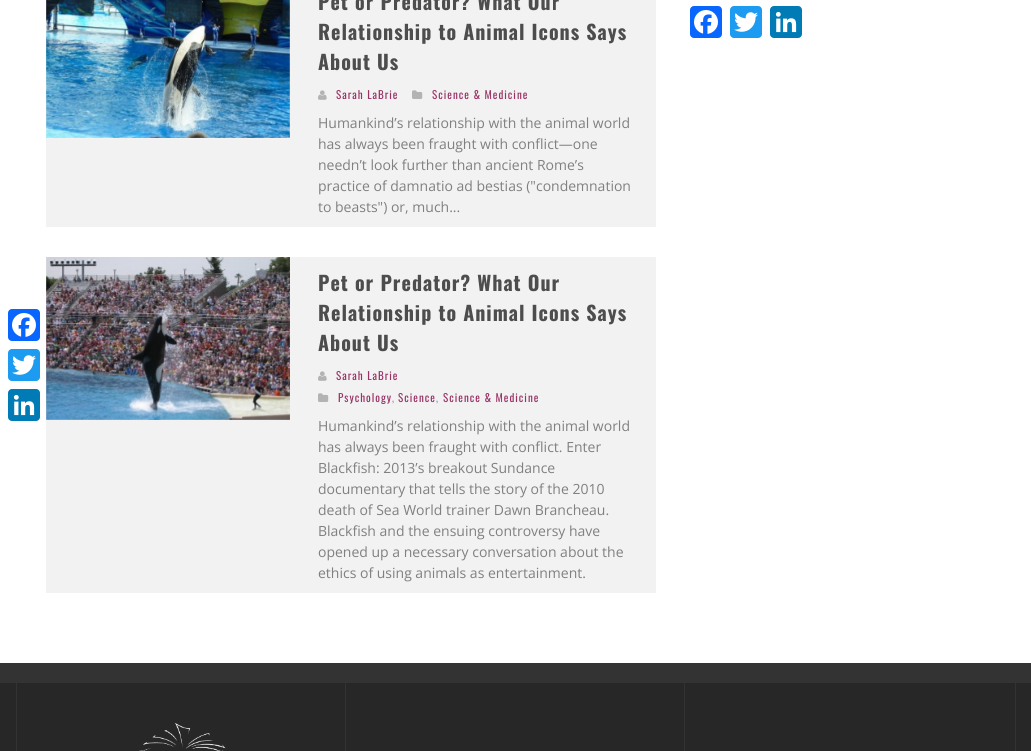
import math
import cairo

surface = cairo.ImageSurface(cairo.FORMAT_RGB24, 1031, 751)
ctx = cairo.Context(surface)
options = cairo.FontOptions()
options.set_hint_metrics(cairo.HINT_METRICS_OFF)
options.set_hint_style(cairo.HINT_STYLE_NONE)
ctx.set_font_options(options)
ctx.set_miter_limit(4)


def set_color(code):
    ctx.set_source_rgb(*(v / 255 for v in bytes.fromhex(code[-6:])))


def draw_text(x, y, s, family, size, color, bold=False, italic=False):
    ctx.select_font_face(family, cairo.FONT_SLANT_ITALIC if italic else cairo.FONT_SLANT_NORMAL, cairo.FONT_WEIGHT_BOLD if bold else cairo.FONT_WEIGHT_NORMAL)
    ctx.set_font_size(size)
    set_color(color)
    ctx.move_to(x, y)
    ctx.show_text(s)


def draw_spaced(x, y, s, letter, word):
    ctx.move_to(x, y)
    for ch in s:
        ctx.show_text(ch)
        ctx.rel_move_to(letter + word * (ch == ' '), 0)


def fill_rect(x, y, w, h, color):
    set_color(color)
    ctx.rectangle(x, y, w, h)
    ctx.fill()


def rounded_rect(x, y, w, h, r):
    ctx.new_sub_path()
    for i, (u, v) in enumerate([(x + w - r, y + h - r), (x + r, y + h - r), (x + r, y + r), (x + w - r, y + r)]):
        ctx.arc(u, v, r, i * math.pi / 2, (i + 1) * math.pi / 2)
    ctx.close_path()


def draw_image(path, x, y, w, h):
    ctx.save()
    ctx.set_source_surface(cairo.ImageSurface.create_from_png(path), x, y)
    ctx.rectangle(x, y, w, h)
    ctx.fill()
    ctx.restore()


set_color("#ffffff")
ctx.paint()
set_color("#0866ff")
rounded_rect(8, 309, 32, 32, 4)
ctx.fill()
draw_image("assets/img1.png", 12, 313, 24, 24)
set_color("#1d9bf0")
rounded_rect(8, 349, 32, 32, 4)
ctx.fill()
draw_image("assets/img2.png", 12, 355, 24, 20)
set_color("#007bb5")
rounded_rect(8, 389, 32, 32, 4)
ctx.fill()
draw_image("assets/img3.png", 13, 394, 22, 22)
fill_rect(46, 0, 610, 227, "#f2f2f2")
draw_image("assets/img4.png", 46, 0, 244, 138)
ctx.select_font_face("Oswald", cairo.FONT_SLANT_NORMAL, cairo.FONT_WEIGHT_BOLD)
ctx.set_font_size(20)
set_color("#4d4d4d")
draw_spaced(318, 10, "Pet or Predator? What Our", 1, 0)
draw_spaced(318, 40, "Relationship to Animal Icons Says", 1, 0)
draw_spaced(318, 70, "About Us", 1, 0)
draw_image("assets/img5.png", 318, 90, 9, 10)
ctx.select_font_face("Oswald")
ctx.set_font_size(11)
set_color("#993366")
draw_spaced(336, 99, "Sarah LaBrie", 1, 0)
draw_image("assets/img6.png", 412, 90, 11, 9)
draw_spaced(432, 99, "Science & Medicine", 1, 0)
draw_text(318, 128, "Humankind’s relationship with the animal world", "Open Sans", 14, "#808080")
draw_text(318, 149, "has always been fraught with conflict—one", "Open Sans", 14, "#808080")
draw_text(318, 170, "needn’t look further than ancient Rome’s", "Open Sans", 14, "#808080")
draw_text(318, 191, "practice of damnatio ad bestias (\"condemnation", "Open Sans", 14, "#808080")
draw_text(318, 212, "to beasts\") or, much...", "Open Sans", 14, "#808080")
fill_rect(46, 257, 610, 336, "#f2f2f2")
draw_image("assets/img7.png", 46, 257, 244, 163)
ctx.select_font_face("Oswald", cairo.FONT_SLANT_NORMAL, cairo.FONT_WEIGHT_BOLD)
ctx.set_font_size(20)
set_color("#4d4d4d")
draw_spaced(318, 291, "Pet or Predator? What Our", 1, 0)
draw_spaced(318, 321, "Relationship to Animal Icons Says", 1, 0)
draw_spaced(318, 351, "About Us", 1, 0)
draw_image("assets/img5.png", 318, 371, 9, 10)
ctx.select_font_face("Oswald")
ctx.set_font_size(11)
set_color("#993366")
draw_spaced(336, 380, "Sarah LaBrie", 1, 0)
draw_image("assets/img6.png", 318, 393, 11, 9)
draw_spaced(338, 402, "Psychology", 1, 0)
set_color("#999999")
draw_spaced(392, 402, ",", 1, 0)
set_color("#993366")
draw_spaced(398, 402, "Science", 1, 0)
set_color("#999999")
draw_spaced(436, 402, ",", 1, 0)
set_color("#993366")
draw_spaced(443, 402, "Science & Medicine", 1, 0)
draw_text(318, 431, "Humankind’s relationship with the animal world", "Open Sans", 14, "#808080")
draw_text(318, 452, "has always been fraught with conflict. Enter", "Open Sans", 14, "#808080")
draw_text(318, 473, "Blackfish: 2013’s breakout Sundance", "Open Sans", 14, "#808080")
draw_text(318, 494, "documentary that tells the story of the 2010", "Open Sans", 14, "#808080")
draw_text(318, 515, "death of Sea World trainer Dawn Brancheau.", "Open Sans", 14, "#808080")
draw_text(318, 536, "Blackfish and the ensuing controversy have", "Open Sans", 14, "#808080")
draw_text(318, 557, "opened up a necessary conversation about the", "Open Sans", 14, "#808080")
draw_text(318, 578, "ethics of using animals as entertainment.", "Open Sans", 14, "#808080")
set_color("#0866ff")
rounded_rect(690, 6, 32, 32, 4)
ctx.fill()
draw_image("assets/img1.png", 694, 10, 24, 24)
set_color("#1d9bf0")
rounded_rect(730, 6, 32, 32, 4)
ctx.fill()
draw_image("assets/img2.png", 734, 12, 24, 20)
set_color("#007bb5")
rounded_rect(770, 6, 32, 32, 4)
ctx.fill()
draw_image("assets/img3.png", 775, 11, 22, 22)
fill_rect(0, 683, 1031, 68, "#272727")
fill_rect(0, 663, 1031, 20, "#333333")
fill_rect(1015, 683, 1, 68, "#333333")
fill_rect(16, 683, 1, 68, "#333333")
fill_rect(345, 683, 1, 68, "#333333")
draw_image("assets/img8.png", 139, 723, 87, 28)
fill_rect(684, 683, 1, 68, "#333333")
surface.write_to_png("output.png")
